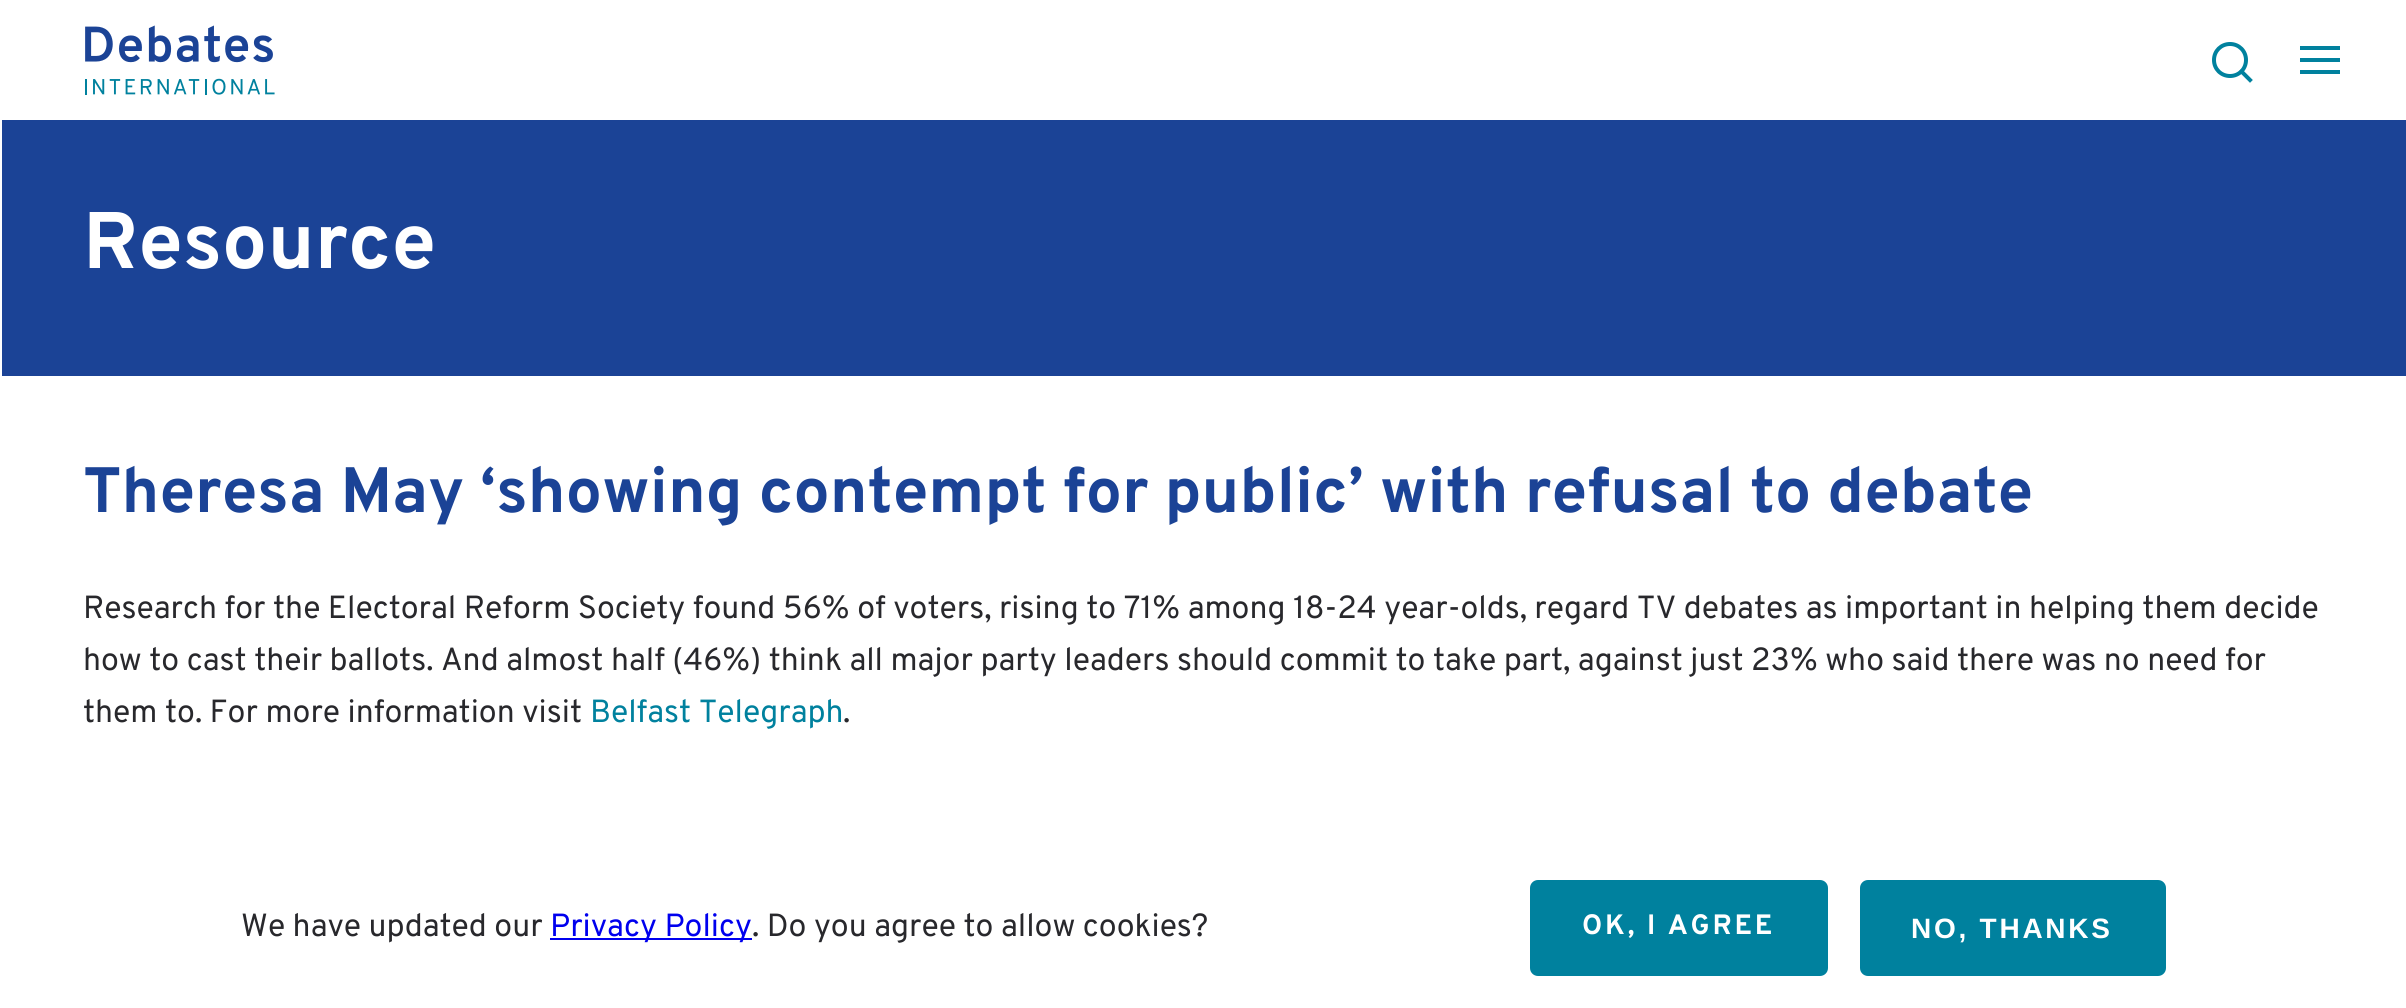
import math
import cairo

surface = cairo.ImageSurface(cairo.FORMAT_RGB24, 2406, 1008)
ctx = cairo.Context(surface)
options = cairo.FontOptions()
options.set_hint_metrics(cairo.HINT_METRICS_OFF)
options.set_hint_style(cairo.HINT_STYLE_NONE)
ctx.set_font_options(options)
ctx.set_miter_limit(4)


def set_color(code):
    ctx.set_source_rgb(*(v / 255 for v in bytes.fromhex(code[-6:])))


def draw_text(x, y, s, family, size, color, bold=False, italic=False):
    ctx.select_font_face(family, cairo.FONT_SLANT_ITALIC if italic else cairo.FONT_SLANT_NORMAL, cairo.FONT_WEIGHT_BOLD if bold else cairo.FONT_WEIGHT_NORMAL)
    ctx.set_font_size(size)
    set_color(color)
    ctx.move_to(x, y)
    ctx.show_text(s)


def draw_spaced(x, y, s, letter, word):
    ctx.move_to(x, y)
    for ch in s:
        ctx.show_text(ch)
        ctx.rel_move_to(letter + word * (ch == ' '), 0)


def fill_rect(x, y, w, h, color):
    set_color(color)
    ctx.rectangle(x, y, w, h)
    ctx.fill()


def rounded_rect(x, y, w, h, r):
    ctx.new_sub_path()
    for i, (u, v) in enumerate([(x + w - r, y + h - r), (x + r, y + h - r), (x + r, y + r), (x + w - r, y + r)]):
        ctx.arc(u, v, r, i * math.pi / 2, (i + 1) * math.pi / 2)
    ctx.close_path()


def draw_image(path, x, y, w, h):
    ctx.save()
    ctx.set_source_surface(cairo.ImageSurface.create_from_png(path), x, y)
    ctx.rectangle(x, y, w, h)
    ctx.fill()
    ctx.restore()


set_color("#ffffff")
ctx.paint()
draw_image("assets/img1.png", 85, 25, 190, 70)
ctx.new_path()
ctx.move_to(2230, 76)
ctx.curve_to(2239, 76, 2246, 69, 2246, 60)
ctx.curve_to(2246, 51, 2239, 44, 2230, 44)
ctx.curve_to(2221, 44, 2214, 51, 2214, 60)
ctx.curve_to(2214, 69, 2221, 76, 2230, 76)
ctx.close_path()
set_color("#00819e")
ctx.set_line_width(4)
ctx.set_line_cap(cairo.LINE_CAP_ROUND)
ctx.set_line_join(cairo.LINE_JOIN_ROUND)
ctx.stroke()
ctx.new_path()
ctx.move_to(2250, 80)
ctx.line_to(2241.5, 71.5)
ctx.set_line_cap(cairo.LINE_CAP_SQUARE)
ctx.stroke()
fill_rect(2300, 46, 40, 4, "#00819e")
fill_rect(2300, 58, 40, 4, "#00819e")
fill_rect(2300, 70, 40, 4, "#00819e")
fill_rect(2, 120, 2404, 256, "#1b4396")
draw_text(83, 268, "Resource", "Overpass", 80, "#ffffff", bold=True)
draw_text(83, 512, "Theresa May ‘showing contempt for public’ with refusal to debate", "Overpass", 64, "#1b4396", bold=True)
draw_text(83, 618, "Research for the Electoral Reform Society found 56% of voters, rising to 71% among 18-24 year-olds, regard TV debates as important in helping them decide", "Overpass", 32, "#28282c")
draw_text(83, 670, "how to cast their ballots. And almost half (46%) think all major party leaders should commit to take part, against just 23% who said there was no need for", "Overpass", 32, "#28282c")
draw_text(83, 722, "them to. For more information visit", "Overpass", 32, "#28282c")
draw_text(590, 722, "Belfast Telegraph", "Overpass", 32, "#00819e")
draw_text(843, 722, ".", "Overpass", 32, "#28282c")
draw_text(241, 936, "We have updated our", "Overpass", 32, "#28282c")
fill_rect(550, 938, 202, 2, "#0000ee")
draw_text(550, 936, "Privacy Policy", "Overpass", 32, "#0000ee")
draw_text(752, 936, ". Do you agree to allow cookies?", "Overpass", 32, "#28282c")
set_color("#00819e")
rounded_rect(1532, 882, 294, 92, 6)
ctx.fill_preserve()
ctx.set_line_cap(cairo.LINE_CAP_BUTT)
ctx.set_line_join(cairo.LINE_JOIN_MITER)
ctx.stroke()
ctx.select_font_face("Overpass", cairo.FONT_SLANT_NORMAL, cairo.FONT_WEIGHT_BOLD)
ctx.set_font_size(28)
set_color("#ffffff")
draw_spaced(1582, 934, "OK, I AGREE", 2.75, 0)
set_color("#00819e")
rounded_rect(1862, 882, 302, 92, 6)
ctx.fill_preserve()
ctx.stroke()
ctx.select_font_face("Liberation Sans", cairo.FONT_SLANT_NORMAL, cairo.FONT_WEIGHT_BOLD)
set_color("#ffffff")
draw_spaced(1911, 938, "NO, THANKS", 2.75, 0)
surface.write_to_png("output.png")
